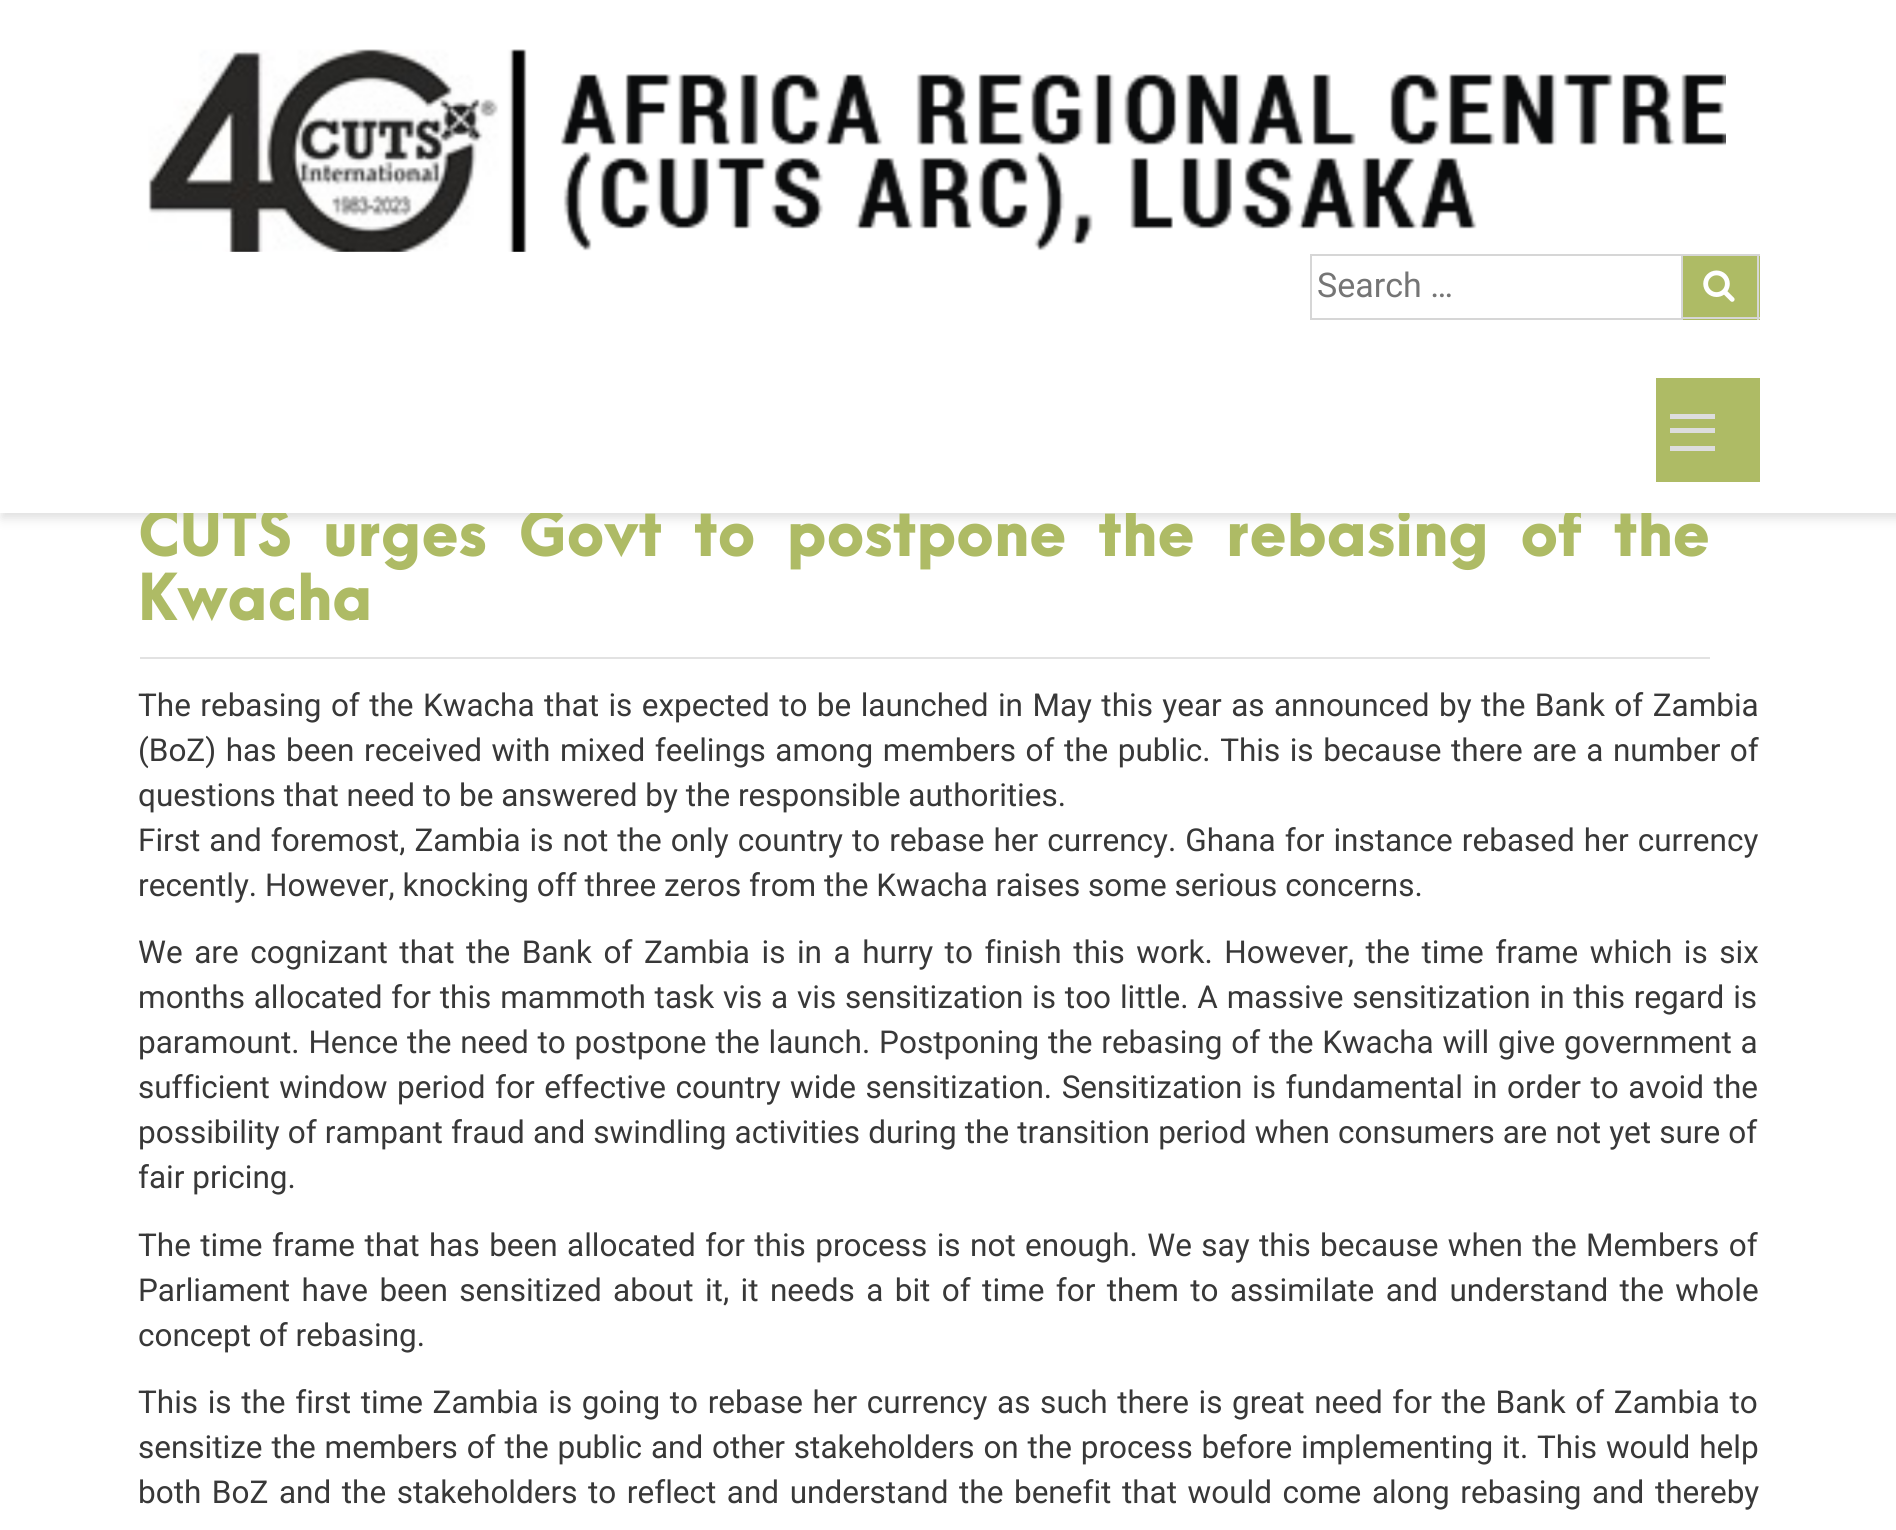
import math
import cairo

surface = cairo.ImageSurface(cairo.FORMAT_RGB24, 1896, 1530)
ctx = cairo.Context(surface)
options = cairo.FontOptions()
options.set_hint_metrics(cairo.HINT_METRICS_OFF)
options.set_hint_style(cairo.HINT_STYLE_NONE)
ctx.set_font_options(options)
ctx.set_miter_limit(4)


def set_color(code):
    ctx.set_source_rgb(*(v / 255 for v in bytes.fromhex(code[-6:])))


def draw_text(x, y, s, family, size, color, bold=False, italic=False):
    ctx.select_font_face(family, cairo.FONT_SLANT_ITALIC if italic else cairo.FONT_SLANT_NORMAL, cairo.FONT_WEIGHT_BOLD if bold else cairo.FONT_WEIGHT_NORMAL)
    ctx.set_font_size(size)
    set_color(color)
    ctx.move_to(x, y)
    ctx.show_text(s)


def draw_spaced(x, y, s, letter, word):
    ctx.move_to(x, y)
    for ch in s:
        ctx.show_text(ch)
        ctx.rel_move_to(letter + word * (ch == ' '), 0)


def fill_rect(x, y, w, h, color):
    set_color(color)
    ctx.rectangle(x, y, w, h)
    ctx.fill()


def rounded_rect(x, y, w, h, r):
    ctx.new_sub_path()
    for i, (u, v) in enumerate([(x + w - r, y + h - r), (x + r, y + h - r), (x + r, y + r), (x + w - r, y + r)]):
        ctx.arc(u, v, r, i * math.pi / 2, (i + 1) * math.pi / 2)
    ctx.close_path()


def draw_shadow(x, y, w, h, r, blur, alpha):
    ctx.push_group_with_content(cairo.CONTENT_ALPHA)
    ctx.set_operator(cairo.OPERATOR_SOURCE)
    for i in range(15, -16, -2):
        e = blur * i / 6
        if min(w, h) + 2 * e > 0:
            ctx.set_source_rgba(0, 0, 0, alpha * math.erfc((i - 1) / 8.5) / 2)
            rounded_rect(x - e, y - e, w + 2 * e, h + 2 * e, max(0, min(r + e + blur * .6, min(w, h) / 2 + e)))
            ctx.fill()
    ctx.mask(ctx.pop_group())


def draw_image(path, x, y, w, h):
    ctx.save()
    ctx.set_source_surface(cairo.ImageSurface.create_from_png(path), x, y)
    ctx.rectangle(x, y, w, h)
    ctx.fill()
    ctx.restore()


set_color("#ffffff")
ctx.paint()
set_color("#dedede")
draw_shadow(2, 5, 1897, 513, 0, 5.5, 1)
ctx.select_font_face("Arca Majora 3 Black")
ctx.set_font_size(58.5)
set_color("#aebb65")
draw_spaced(138, 556, "CUTS urges Govt to postpone the rebasing of the", 0, 12.5)
fill_rect(0, 0, 1896, 513, "#ffffff")
draw_image("assets/img1.png", 148, 49, 1578, 203)
ctx.rectangle(1311, 255, 371, 64)
set_color("#d6d6d6")
ctx.stroke()
draw_text(1317, 297, "Search …", "Roboto", 34, "#757575")
fill_rect(1683, 256, 77, 64, "#aebb65")
fill_rect(1683, 254, 77, 2, "#d6d6d6")
fill_rect(1757, 254, 2, 66, "#d6d6d6")
fill_rect(1683, 317, 77, 2, "#d6d6d6")
draw_image("assets/img2.png", 1703, 270, 32, 32)
fill_rect(1656, 378, 104, 104, "#aebb65")
fill_rect(1670, 414, 45, 5, "#dddddd")
fill_rect(1670, 428, 45, 5, "#dddddd")
fill_rect(1670, 446, 45, 5, "#dddddd")
fill_rect(140, 657, 1570, 2, "#e2e2e2")
draw_text(138, 620, "Kwacha", "Arca Majora 3 Black", 58.5, "#aebb65")
ctx.select_font_face("Roboto")
ctx.set_font_size(31.5)
set_color("#383838")
draw_spaced(138, 716, "The rebasing of the Kwacha that is expected to be launched in May this year as announced by the Bank of Zambia", 0, 1.6)
draw_spaced(138, 761, "(BoZ) has been received with mixed feelings among members of the public. This is because there are a number of", 0, 1.7)
draw_text(138, 806, "questions that need to be answered by the responsible authorities.", "Roboto", 31.5, "#383838")
draw_spaced(138, 851, "First and foremost, Zambia is not the only country to rebase her currency. Ghana for instance rebased her currency", 0, 1.25)
draw_text(138, 896, "recently. However, knocking off three zeros from the Kwacha raises some serious concerns.", "Roboto", 31.5, "#383838")
draw_spaced(138, 963, "We are cognizant that the Bank of Zambia is in a hurry to finish this work. However, the time frame which is six", 0, 3.7)
draw_spaced(138, 1008, "months allocated for this mammoth task vis a vis sensitization is too little. A massive sensitization in this regard is", 0, 1)
draw_spaced(138, 1053, "paramount. Hence the need to postpone the launch. Postponing the rebasing of the Kwacha will give government a", 0, 1)
draw_spaced(138, 1098, "sufficient window period for effective country wide sensitization. Sensitization is fundamental in order to avoid the", 0, 1.75)
draw_spaced(138, 1143, "possibility of rampant fraud and swindling activities during the transition period when consumers are not yet sure of", 0, 0.3)
draw_text(138, 1188, "fair pricing.", "Roboto", 31.5, "#383838")
draw_spaced(138, 1256, "The time frame that has been allocated for this process is not enough. We say this because when the Members of", 0, 1.6)
draw_spaced(138, 1301, "Parliament have been sensitized about it, it needs a bit of time for them to assimilate and understand the whole", 0, 3.6)
draw_text(138, 1346, "concept of rebasing.", "Roboto", 31.5, "#383838")
draw_spaced(138, 1413, "This is the first time Zambia is going to rebase her currency as such there is great need for the Bank of Zambia to", 0, 1.8)
draw_spaced(138, 1458, "sensitize the members of the public and other stakeholders on the process before implementing it. This would help", 0, 1)
draw_spaced(138, 1503, "both BoZ and the stakeholders to reflect and understand the benefit that would come along rebasing and thereby", 0, 2.75)
surface.write_to_png("output.png")
